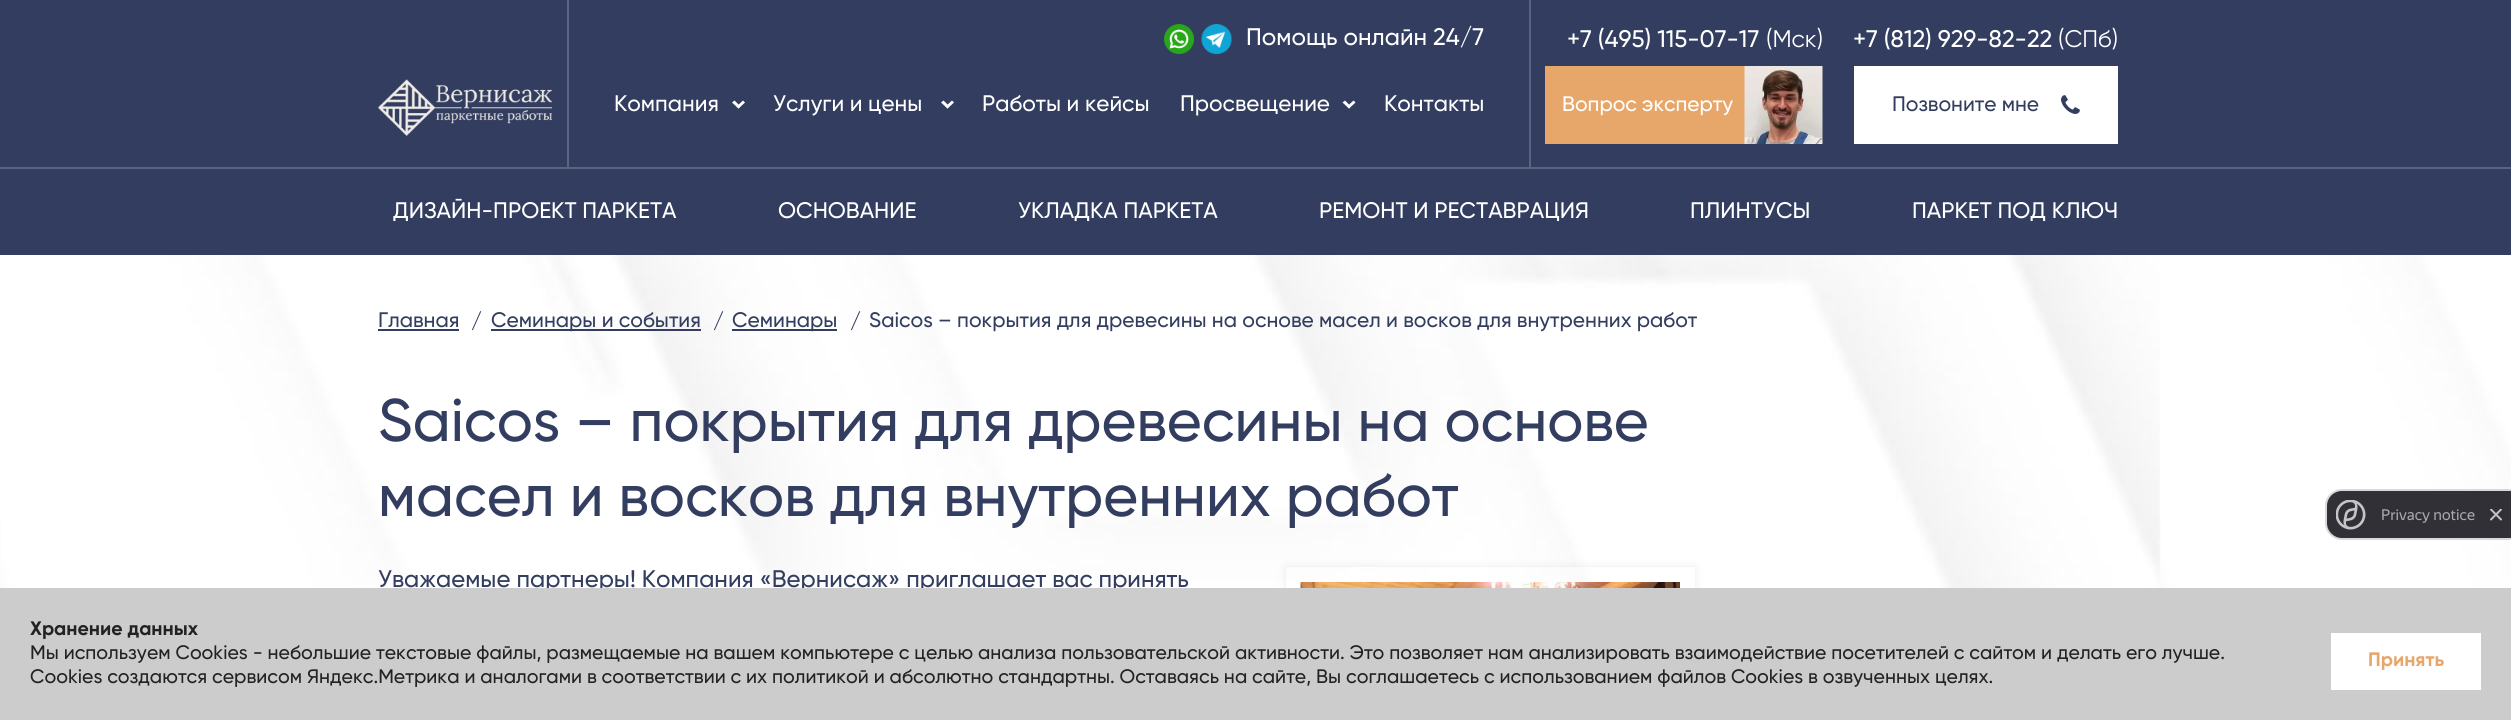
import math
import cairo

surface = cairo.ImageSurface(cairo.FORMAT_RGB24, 2511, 720)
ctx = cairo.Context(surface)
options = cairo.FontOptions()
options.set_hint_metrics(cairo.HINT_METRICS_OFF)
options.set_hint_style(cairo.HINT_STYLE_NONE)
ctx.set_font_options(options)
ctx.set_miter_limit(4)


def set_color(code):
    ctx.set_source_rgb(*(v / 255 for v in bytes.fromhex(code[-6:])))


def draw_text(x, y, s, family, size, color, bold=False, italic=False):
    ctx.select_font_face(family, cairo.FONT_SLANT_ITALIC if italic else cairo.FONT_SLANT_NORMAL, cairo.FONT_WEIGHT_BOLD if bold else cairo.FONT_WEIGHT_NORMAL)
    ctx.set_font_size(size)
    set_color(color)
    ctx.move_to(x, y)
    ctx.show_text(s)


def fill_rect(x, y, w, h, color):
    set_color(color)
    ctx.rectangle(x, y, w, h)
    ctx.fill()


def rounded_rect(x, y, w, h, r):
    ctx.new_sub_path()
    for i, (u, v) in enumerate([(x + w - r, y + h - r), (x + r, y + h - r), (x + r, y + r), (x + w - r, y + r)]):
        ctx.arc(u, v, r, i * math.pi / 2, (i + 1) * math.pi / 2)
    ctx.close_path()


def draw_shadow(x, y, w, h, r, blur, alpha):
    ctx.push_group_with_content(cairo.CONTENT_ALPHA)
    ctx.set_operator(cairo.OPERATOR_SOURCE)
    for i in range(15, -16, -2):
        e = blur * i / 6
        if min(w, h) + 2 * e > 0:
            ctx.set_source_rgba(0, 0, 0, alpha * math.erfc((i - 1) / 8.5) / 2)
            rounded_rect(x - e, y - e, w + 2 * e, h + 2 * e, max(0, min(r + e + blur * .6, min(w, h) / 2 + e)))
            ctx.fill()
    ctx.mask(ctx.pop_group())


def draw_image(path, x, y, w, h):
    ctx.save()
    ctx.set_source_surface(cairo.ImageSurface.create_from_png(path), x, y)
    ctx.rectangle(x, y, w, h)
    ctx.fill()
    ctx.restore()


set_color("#ffffff")
ctx.paint()
draw_image("assets/img1.png", 0, 255, 2511, 333)
fill_rect(0, 0, 2511, 255, "#323d5f")
fill_rect(0, 167, 2511, 2, "#5b647f")
fill_rect(567, 0, 2, 167, "#5b647f")
draw_image("assets/img2.png", 378, 79, 174, 57)
draw_image("assets/img3.png", 1164, 24, 30, 30)
draw_image("assets/img4.png", 1201, 24, 31, 30)
draw_text(1246, 45, "Помощь онлайн 24/7", "Gilroy Medium", 24, "#ffffff")
draw_text(614, 111, "Компания", "Gilroy Medium", 22.5, "#ffffff")
ctx.new_path()
ctx.move_to(745, 102.5)
ctx.line_to(738.5, 108.5)
ctx.line_to(736.5, 106.5)
ctx.line_to(743, 100.5)
ctx.close_path()
ctx.fill()
ctx.new_path()
ctx.move_to(740.5, 106.5)
ctx.line_to(738.5, 108.5)
ctx.line_to(732, 102.5)
ctx.line_to(734.5, 100.5)
ctx.close_path()
ctx.fill()
draw_text(773, 111, "Услуги и цены", "Gilroy Medium", 22.5, "#ffffff")
ctx.new_path()
ctx.move_to(954, 102.5)
ctx.line_to(947.5, 108.5)
ctx.line_to(945.5, 106.5)
ctx.line_to(952, 100.5)
ctx.close_path()
ctx.fill()
ctx.new_path()
ctx.move_to(949.5, 106.5)
ctx.line_to(947.5, 108.5)
ctx.line_to(941, 102.5)
ctx.line_to(943.5, 100.5)
ctx.close_path()
ctx.fill()
draw_text(982, 111, "Работы и кейсы", "Gilroy Medium", 22.5, "#ffffff")
draw_text(1180, 111, "Просвещение", "Gilroy Medium", 22.5, "#ffffff")
ctx.new_path()
ctx.move_to(1355.5, 102.5)
ctx.line_to(1349, 108.5)
ctx.line_to(1347, 106.5)
ctx.line_to(1353.5, 100.5)
ctx.close_path()
ctx.fill()
ctx.new_path()
ctx.move_to(1351, 106.5)
ctx.line_to(1349, 108.5)
ctx.line_to(1342.5, 102.5)
ctx.line_to(1345, 100.5)
ctx.close_path()
ctx.fill()
draw_text(1384, 111, "Контакты", "Gilroy Medium", 22.5, "#ffffff")
fill_rect(1529, 0, 2, 167, "#5b647f")
draw_text(1567, 47, "+7 (495) 115-07-17", "Gilroy Medium", 24, "#ffffff")
draw_text(1766, 47, "(Мск)", "Gilroy", 24, "#ffffff")
draw_text(1853, 47, "+7 (812) 929-82-22", "Gilroy Medium", 24, "#ffffff")
draw_text(2058, 47, "(СПб)", "Gilroy", 24, "#ffffff")
fill_rect(1545, 66, 200, 78, "#e7a76b")
draw_text(1562, 111, "Вопрос эксперту", "Gilroy Medium", 21, "#ffffff")
draw_image("assets/img5.png", 1744, 66, 79, 78)
fill_rect(1854, 66, 264, 78, "#ffffff")
draw_text(1892, 111, "Позвоните мне", "Gilroy Medium", 21, "#323d5f")
draw_image("assets/img6.png", 2061, 95, 19, 19)
draw_text(393, 218, "ДИЗАЙН-ПРОЕКТ ПАРКЕТА", "Gilroy Medium", 22.5, "#ffffff")
draw_text(778, 218, "ОСНОВАНИЕ", "Gilroy Medium", 22.5, "#ffffff")
draw_text(1018, 218, "УКЛАДКА ПАРКЕТА", "Gilroy Medium", 22.5, "#ffffff")
draw_text(1319, 218, "РЕМОНТ И РЕСТАВРАЦИЯ", "Gilroy Medium", 22.5, "#ffffff")
draw_text(1690, 218, "ПЛИНТУСЫ", "Gilroy Medium", 22.5, "#ffffff")
draw_text(1912, 218, "ПАРКЕТ ПОД КЛЮЧ", "Gilroy Medium", 22.5, "#ffffff")
draw_text(378, 327, "Главная", "Gilroy Medium", 21, "#323d5f")
fill_rect(378, 329, 81, 2, "#323d5f")
draw_text(471, 328, "/", "Gilroy Medium", 21, "#323d5f")
fill_rect(491, 329, 210, 2, "#323d5f")
draw_text(491, 327, "Семинары и события", "Gilroy Medium", 21, "#323d5f")
draw_text(713, 328, "/", "Gilroy Medium", 21, "#323d5f")
fill_rect(732, 329, 105, 2, "#323d5f")
draw_text(732, 327, "Семинары", "Gilroy Medium", 21, "#323d5f")
draw_text(850, 328, "/", "Gilroy Medium", 21, "#323d5f")
draw_text(869, 327, "Saicos – покрытия для древесины на основе масел и восков для внутренних работ", "Gilroy Medium", 21, "#323d5f")
draw_text(378, 441, "Saicos – покрытия для древесины на основе", "Gilroy Medium", 60, "#323d5f")
draw_text(378, 516, "масел и восков для внутренних работ", "Gilroy Medium", 60, "#323d5f")
draw_text(378, 587, "Уважаемые партнеры! Компания «Вернисаж» приглашает вас принять", "Gilroy Medium", 24, "#323d5f")
ctx.save()
ctx.set_fill_rule(cairo.FILL_RULE_EVEN_ODD)
ctx.new_path()
ctx.move_to(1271, 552)
ctx.line_to(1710, 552)
ctx.line_to(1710, 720)
ctx.line_to(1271, 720)
ctx.close_path()
ctx.move_to(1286, 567)
ctx.line_to(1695, 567)
ctx.line_to(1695, 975)
ctx.line_to(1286, 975)
ctx.close_path()
ctx.clip()
set_color("#1a2e55")
draw_shadow(1286, 567, 409, 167, 0, 4.5, 0.1)
ctx.restore()
draw_image("assets/img7.png", 1300, 582, 380, 6)
set_color("#313036")
rounded_rect(2326, 490, 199, 49, 16)
ctx.fill_preserve()
set_color("#d9d9d9")
ctx.stroke()
draw_image("assets/img8.png", 2336, 500, 30, 30)
draw_text(2381, 520, "Privacy notice", "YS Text", 15, "#ababad")
draw_image("assets/img9.png", 2490, 509, 12, 12)
fill_rect(0, 588, 2511, 132, "#cccccc")
draw_text(30, 635, "Хранение данных", "Gilroy", 19.5, "#222222", bold=True)
draw_text(30, 659, "Мы используем Cookies - небольшие текстовые файлы, размещаемые на вашем компьютере с целью анализа пользовательской активности. Это позволяет нам анализировать взаимодействие посетителей с сайтом и делать его лучше.", "Gilroy Medium", 19.5, "#222222")
draw_text(30, 683, "Cookies создаются сервисом Яндекс.Метрика и аналогами в соответствии с их политикой и абсолютно стандартны. Оставаясь на сайте, Вы соглашаетесь с использованием файлов Cookies в озвученных целях.", "Gilroy Medium", 19.5, "#222222")
fill_rect(2331, 633, 150, 57, "#ffffff")
draw_text(2368, 666, "Принять", "Gilroy", 19.5, "#e7a76b", bold=True)
surface.write_to_png("output.png")
